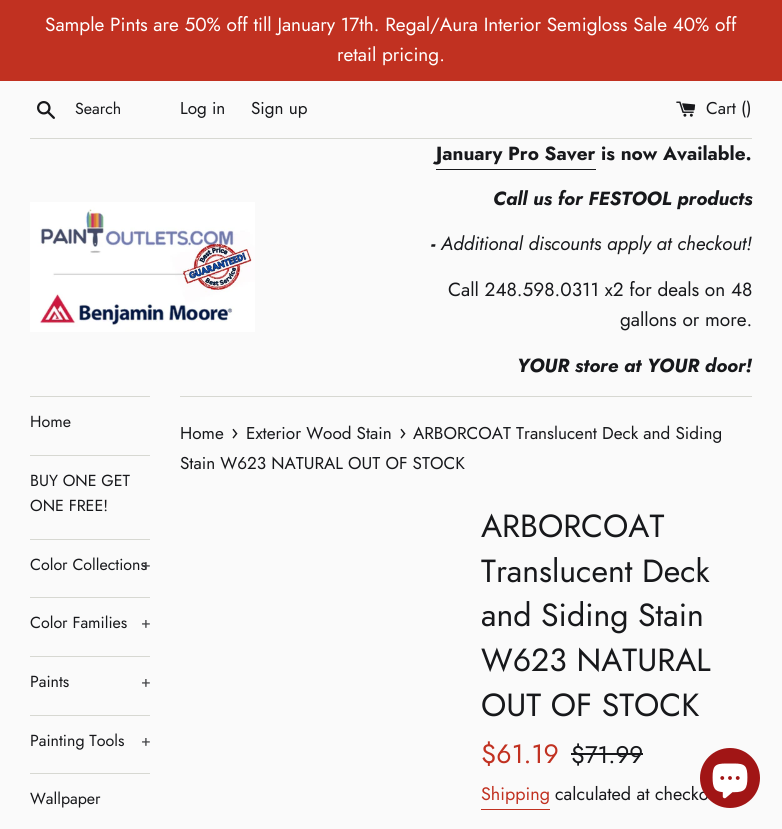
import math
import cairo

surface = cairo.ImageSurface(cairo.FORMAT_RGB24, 782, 829)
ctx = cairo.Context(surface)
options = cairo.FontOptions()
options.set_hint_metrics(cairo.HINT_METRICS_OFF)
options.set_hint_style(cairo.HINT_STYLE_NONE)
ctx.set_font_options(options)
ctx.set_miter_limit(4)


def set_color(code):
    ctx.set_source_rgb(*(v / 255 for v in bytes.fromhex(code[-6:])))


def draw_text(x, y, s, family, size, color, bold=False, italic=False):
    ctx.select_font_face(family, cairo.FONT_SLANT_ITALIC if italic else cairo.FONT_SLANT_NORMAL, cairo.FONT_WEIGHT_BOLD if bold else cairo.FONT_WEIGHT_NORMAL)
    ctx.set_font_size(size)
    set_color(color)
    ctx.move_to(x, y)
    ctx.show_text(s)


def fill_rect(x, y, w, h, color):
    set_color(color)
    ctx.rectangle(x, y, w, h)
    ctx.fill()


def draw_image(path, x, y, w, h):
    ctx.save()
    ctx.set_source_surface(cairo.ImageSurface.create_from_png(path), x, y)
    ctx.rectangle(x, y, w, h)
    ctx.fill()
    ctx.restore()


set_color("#fafafa")
ctx.paint()
fill_rect(0, 0, 782, 81, "#c13121")
draw_text(45, 31, "Sample Pints are 50% off till January 17th. Regal/Aura Interior Semigloss Sale 40% off", "Jost", 19, "#ffffff")
draw_text(337, 61, "retail pricing.", "Jost", 19, "#ffffff")
draw_image("assets/img1.png", 37, 101, 18, 18)
draw_text(75, 114, "Search", "Jost", 16, "#17181b")
draw_text(180, 114, "Log in", "Jost", 17.1, "#17181b")
draw_text(251, 114, "Sign up", "Jost", 17.1, "#17181b")
draw_image("assets/img2.png", 676, 101, 20, 16)
draw_text(706, 114, "Cart ()", "Jost", 17.1, "#17181b")
fill_rect(30, 138, 722, 1, "#d7d8d2")
draw_image("assets/img3.png", 30, 202, 225, 130)
draw_text(436, 160, "January Pro Saver is now Available.", "Jost", 19, "#17181b", bold=True)
fill_rect(436, 169, 160, 1, "#17181b")
draw_text(493, 205, "Call us for FESTOOL products", "Jost", 19, "#17181b", bold=True, italic=True)
draw_text(431, 250, "-", "Jost", 19, "#17181b", bold=True, italic=True)
draw_text(441, 250, "Additional discounts apply at checkout!", "Jost", 19, "#17181b", italic=True)
draw_text(448, 296, "Call 248.598.0311 x2 for deals on 48", "Jost", 19, "#17181b")
draw_text(620, 326, "gallons or more.", "Jost", 19, "#17181b")
draw_text(517, 372, "YOUR store at YOUR door!", "Jost", 19, "#17181b", bold=True, italic=True)
fill_rect(30, 396, 120, 1, "#d7d8d2")
fill_rect(30, 455, 120, 1, "#d7d8d2")
draw_text(30, 427, "Home", "Jost", 16, "#17181b")
fill_rect(30, 539, 120, 1, "#d7d8d2")
draw_text(30, 486, "BUY ONE GET", "Jost", 16, "#17181b")
draw_text(30, 511, "ONE FREE!", "Jost", 16, "#17181b")
fill_rect(30, 597, 120, 1, "#d7d8d2")
draw_text(30, 570, "Color Collections", "Jost", 16, "#17181b")
draw_text(141, 570, "+", "Jost", 16, "#353639")
fill_rect(30, 656, 120, 1, "#d7d8d2")
draw_text(30, 628, "Color Families", "Jost", 16, "#17181b")
draw_text(141, 628, "+", "Jost", 16, "#444548")
fill_rect(30, 715, 120, 1, "#d7d8d2")
draw_text(30, 687, "Paints", "Jost", 16, "#17181b")
draw_text(141, 687, "+", "Jost", 16, "#444548")
fill_rect(30, 773, 120, 1, "#d7d8d2")
draw_text(30, 746, "Painting Tools", "Jost", 16, "#17181b")
draw_text(141, 746, "+", "Jost", 16, "#444548")
draw_text(30, 804, "Wallpaper", "Jost", 16, "#17181b")
fill_rect(180, 396, 572, 1, "#d7d8d2")
draw_text(180, 439, "Home", "Jost", 17.1, "#17181b")
draw_text(231, 439, "›", "Jost", 21, "#17181b")
draw_text(246, 439, "Exterior Wood Stain", "Jost", 17.1, "#17181b")
draw_text(399, 439, "›", "Jost", 21, "#17181b")
draw_text(413, 439, "ARBORCOAT Translucent Deck and Siding", "Jost", 17.1, "#17181b")
draw_text(180, 469, "Stain W623 NATURAL OUT OF STOCK", "Jost", 17.1, "#17181b")
draw_text(481, 537, "ARBORCOAT", "Jost", 32, "#17181b")
draw_text(481, 582, "Translucent Deck", "Jost", 32, "#17181b")
draw_text(481, 626, "and Siding Stain", "Jost", 32, "#17181b")
draw_text(481, 671, "W623 NATURAL", "Jost", 32, "#17181b")
draw_text(481, 716, "OUT OF STOCK", "Jost", 32, "#17181b")
draw_text(481, 763, "$61.19", "Jost", 26.5, "#c13121")
draw_text(571, 763, "$71.99", "Jost", 24, "#17181b")
fill_rect(571, 753, 72, 2, "#17181b")
draw_text(481, 800, "Shipping", "Jost", 18, "#c13121")
fill_rect(481, 809, 69, 1, "#c13121")
draw_text(555, 800, "calculated at checko", "Jost", 18, "#17181b")
set_color("#a11515")
ctx.new_path()
ctx.arc(730, 778, 30, 0, 2 * math.pi)
ctx.fill()
draw_image("assets/img4.png", 712, 763, 36, 36)
surface.write_to_png("output.png")
